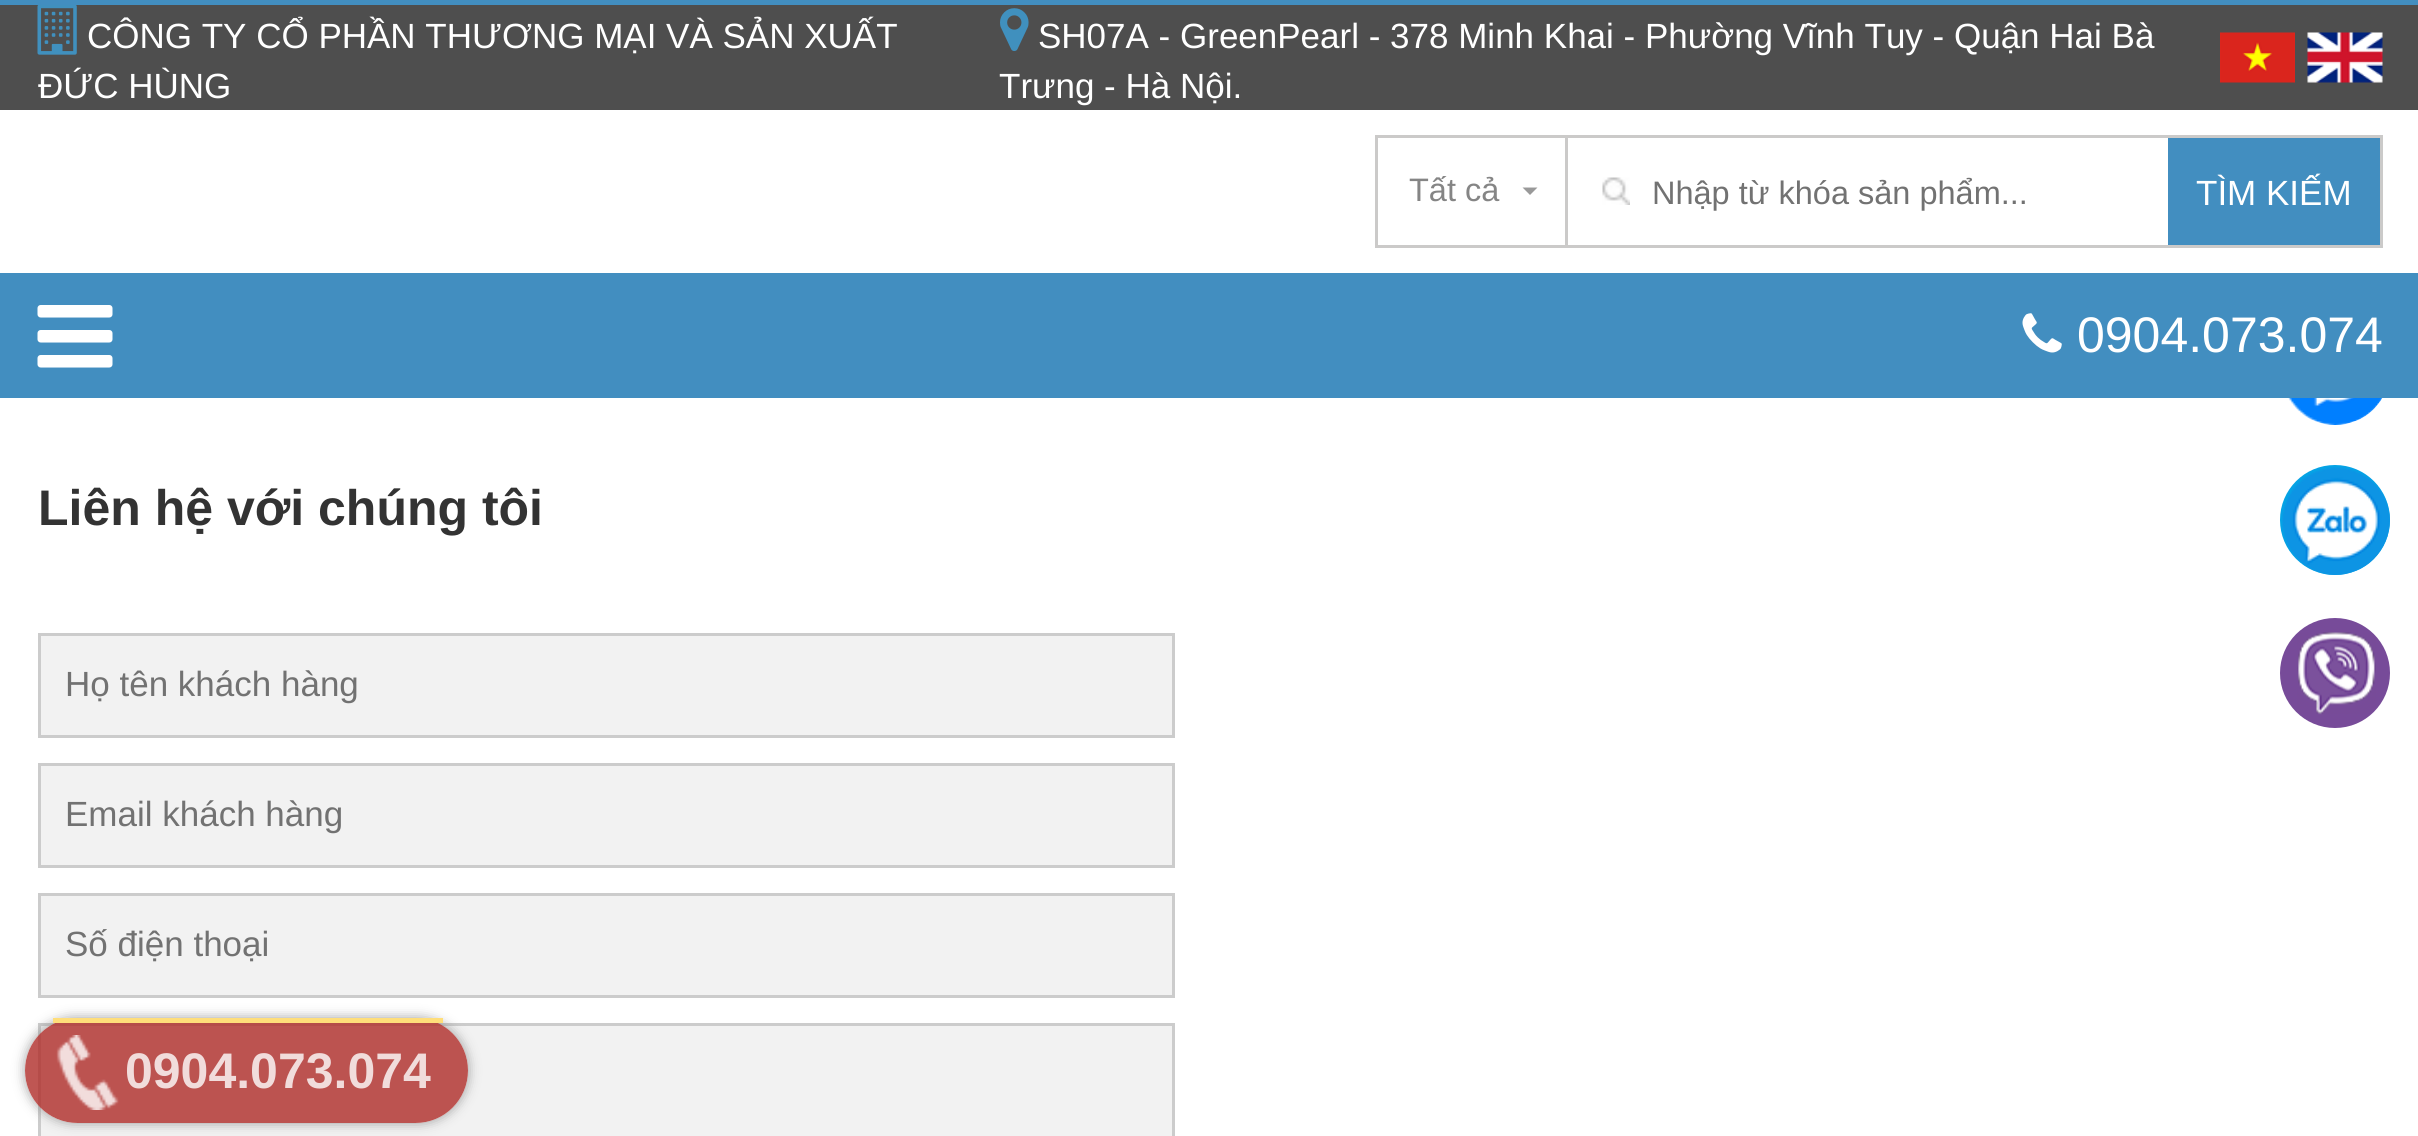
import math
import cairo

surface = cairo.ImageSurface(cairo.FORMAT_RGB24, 2418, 1136)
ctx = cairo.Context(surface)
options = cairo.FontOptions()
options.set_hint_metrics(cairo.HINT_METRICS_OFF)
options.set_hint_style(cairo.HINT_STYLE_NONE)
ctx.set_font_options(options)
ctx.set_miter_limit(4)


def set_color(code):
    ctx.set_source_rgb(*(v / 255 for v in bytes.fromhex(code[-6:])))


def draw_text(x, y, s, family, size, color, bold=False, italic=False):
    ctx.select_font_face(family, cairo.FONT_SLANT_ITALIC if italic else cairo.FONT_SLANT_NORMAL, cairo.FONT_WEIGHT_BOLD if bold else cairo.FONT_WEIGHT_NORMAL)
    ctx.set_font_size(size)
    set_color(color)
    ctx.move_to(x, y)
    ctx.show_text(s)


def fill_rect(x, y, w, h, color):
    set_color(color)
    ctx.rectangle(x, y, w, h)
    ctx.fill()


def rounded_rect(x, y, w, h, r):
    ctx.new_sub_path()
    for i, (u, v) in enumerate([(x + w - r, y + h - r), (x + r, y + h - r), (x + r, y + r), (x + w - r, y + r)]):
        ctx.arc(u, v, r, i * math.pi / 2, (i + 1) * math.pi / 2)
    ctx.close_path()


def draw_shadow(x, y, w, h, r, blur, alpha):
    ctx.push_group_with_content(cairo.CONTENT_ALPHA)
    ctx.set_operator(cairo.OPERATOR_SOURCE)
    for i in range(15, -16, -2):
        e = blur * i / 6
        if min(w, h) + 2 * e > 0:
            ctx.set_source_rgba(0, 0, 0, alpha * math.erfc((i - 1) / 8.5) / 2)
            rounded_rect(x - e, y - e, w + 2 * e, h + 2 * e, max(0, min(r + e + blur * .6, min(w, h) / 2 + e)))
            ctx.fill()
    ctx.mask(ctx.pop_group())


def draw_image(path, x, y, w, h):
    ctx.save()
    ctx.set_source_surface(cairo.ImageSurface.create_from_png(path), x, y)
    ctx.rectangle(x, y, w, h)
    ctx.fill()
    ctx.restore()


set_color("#ffffff")
ctx.paint()
fill_rect(0, 5, 2418, 105, "#4e4e4e")
fill_rect(0, 0, 2418, 5, "#428ec0")
draw_image("assets/img1.png", 37, 5, 40, 50)
draw_text(87, 48, "CÔNG TY CỔ PHẦN THƯƠNG MẠI VÀ SẢN XUẤT", "Liberation Sans", 35, "#ffffff")
draw_text(38, 98, "ĐỨC HÙNG", "Liberation Sans", 35, "#ffffff")
draw_image("assets/img2.png", 1000, 8, 29, 43)
draw_text(1038, 48, "SH07A - GreenPearl - 378 Minh Khai - Phường Vĩnh Tuy - Quận Hai Bà", "Liberation Sans", 35, "#ffffff")
draw_text(999, 98, "Trưng - Hà Nội.", "Liberation Sans", 35, "#ffffff")
draw_image("assets/img3.png", 2220, 32, 75, 51)
draw_image("assets/img4.png", 2307, 32, 76, 51)
ctx.rectangle(1376.5, 136.5, 1005, 110)
set_color("#cbcac9")
ctx.set_line_width(3)
ctx.stroke()
fill_rect(1565, 138, 3, 107, "#cbcac9")
draw_text(1409, 201, "Tất cả", "Liberation Sans", 32.5, "#858585")
set_color("#999999")
ctx.new_path()
ctx.move_to(1522.5, 187.5)
ctx.line_to(1537.5, 187.5)
ctx.line_to(1530, 195)
ctx.close_path()
ctx.fill()
draw_image("assets/img5.png", 1602, 177, 28, 28)
draw_text(1652, 204, "Nhập từ khóa sản phẩm...", "Liberation Sans", 32.5, "#727272")
fill_rect(2168, 138, 212, 107, "#428ec0")
draw_text(2196, 205, "TÌM KIẾM", "Liberation Sans", 35, "#ffffff")
fill_rect(0, 273, 2418, 125, "#428ec0")
draw_image("assets/img6.png", 37, 305, 76, 63)
draw_image("assets/img7.png", 2022, 313, 40, 40)
draw_text(2077, 352, "0904.073.074", "Liberation Sans", 50, "#ffffff")
draw_text(38, 525, "Liên hệ với chúng tôi", "Liberation Sans", 50, "#333333", bold=True)
set_color("#f2f2f2")
ctx.rectangle(39.5, 634.5, 1134, 102)
ctx.fill_preserve()
set_color("#cccccc")
ctx.stroke()
draw_text(65, 696, "Họ tên khách hàng", "Liberation Sans", 35, "#727272")
set_color("#f2f2f2")
ctx.rectangle(39.5, 764.5, 1134, 102)
ctx.fill_preserve()
set_color("#cccccc")
ctx.stroke()
draw_text(65, 826, "Email khách hàng", "Liberation Sans", 35, "#727272")
set_color("#f2f2f2")
ctx.rectangle(39.5, 894.5, 1134, 102)
ctx.fill_preserve()
set_color("#cccccc")
ctx.stroke()
draw_text(65, 956, "Số điện thoại", "Liberation Sans", 35, "#727272")
set_color("#f2f2f2")
ctx.rectangle(39.5, 1024.5, 1134, 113)
ctx.fill_preserve()
set_color("#cccccc")
ctx.stroke()
draw_image("assets/img8.png", 2288, 398, 95, 27)
set_color("#05a3e5")
ctx.arc(2335, 520, 55, 0, 2 * math.pi)
ctx.fill()
draw_image("assets/img9.png", 2282, 467, 108, 108)
set_color("#774b99")
ctx.arc(2335, 673, 55, 0, 2 * math.pi)
ctx.fill()
draw_image("assets/img10.png", 2297, 632, 79, 83)
ctx.save()
ctx.set_fill_rule(cairo.FILL_RULE_EVEN_ODD)
ctx.new_path()
ctx.move_to(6, 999)
ctx.line_to(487, 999)
ctx.line_to(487, 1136)
ctx.line_to(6, 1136)
ctx.close_path()
ctx.move_to(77.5, 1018)
ctx.line_to(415.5, 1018)
ctx.curve_to(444.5, 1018, 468, 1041.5, 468, 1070.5)
ctx.curve_to(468, 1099.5, 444.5, 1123, 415.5, 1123)
ctx.line_to(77.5, 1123)
ctx.curve_to(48.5, 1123, 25, 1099.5, 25, 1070.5)
ctx.curve_to(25, 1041.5, 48.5, 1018, 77.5, 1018)
ctx.close_path()
ctx.clip()
set_color("#888888")
draw_shadow(25, 1018, 443, 105, 52.5, 6, 0.8)
ctx.restore()
ctx.set_source_rgba(0.686, 0.173, 0.157, 0.8)
rounded_rect(25, 1018, 443, 105, 52.5)
ctx.fill()
draw_image("assets/img11.png", 56, 1035, 63, 75)
fill_rect(53, 1018, 390, 5, "#ffde7a")
draw_text(125, 1088, "0904.073.074", "Liberation Sans", 50, "#f1dcdb", bold=True)
surface.write_to_png("output.png")
